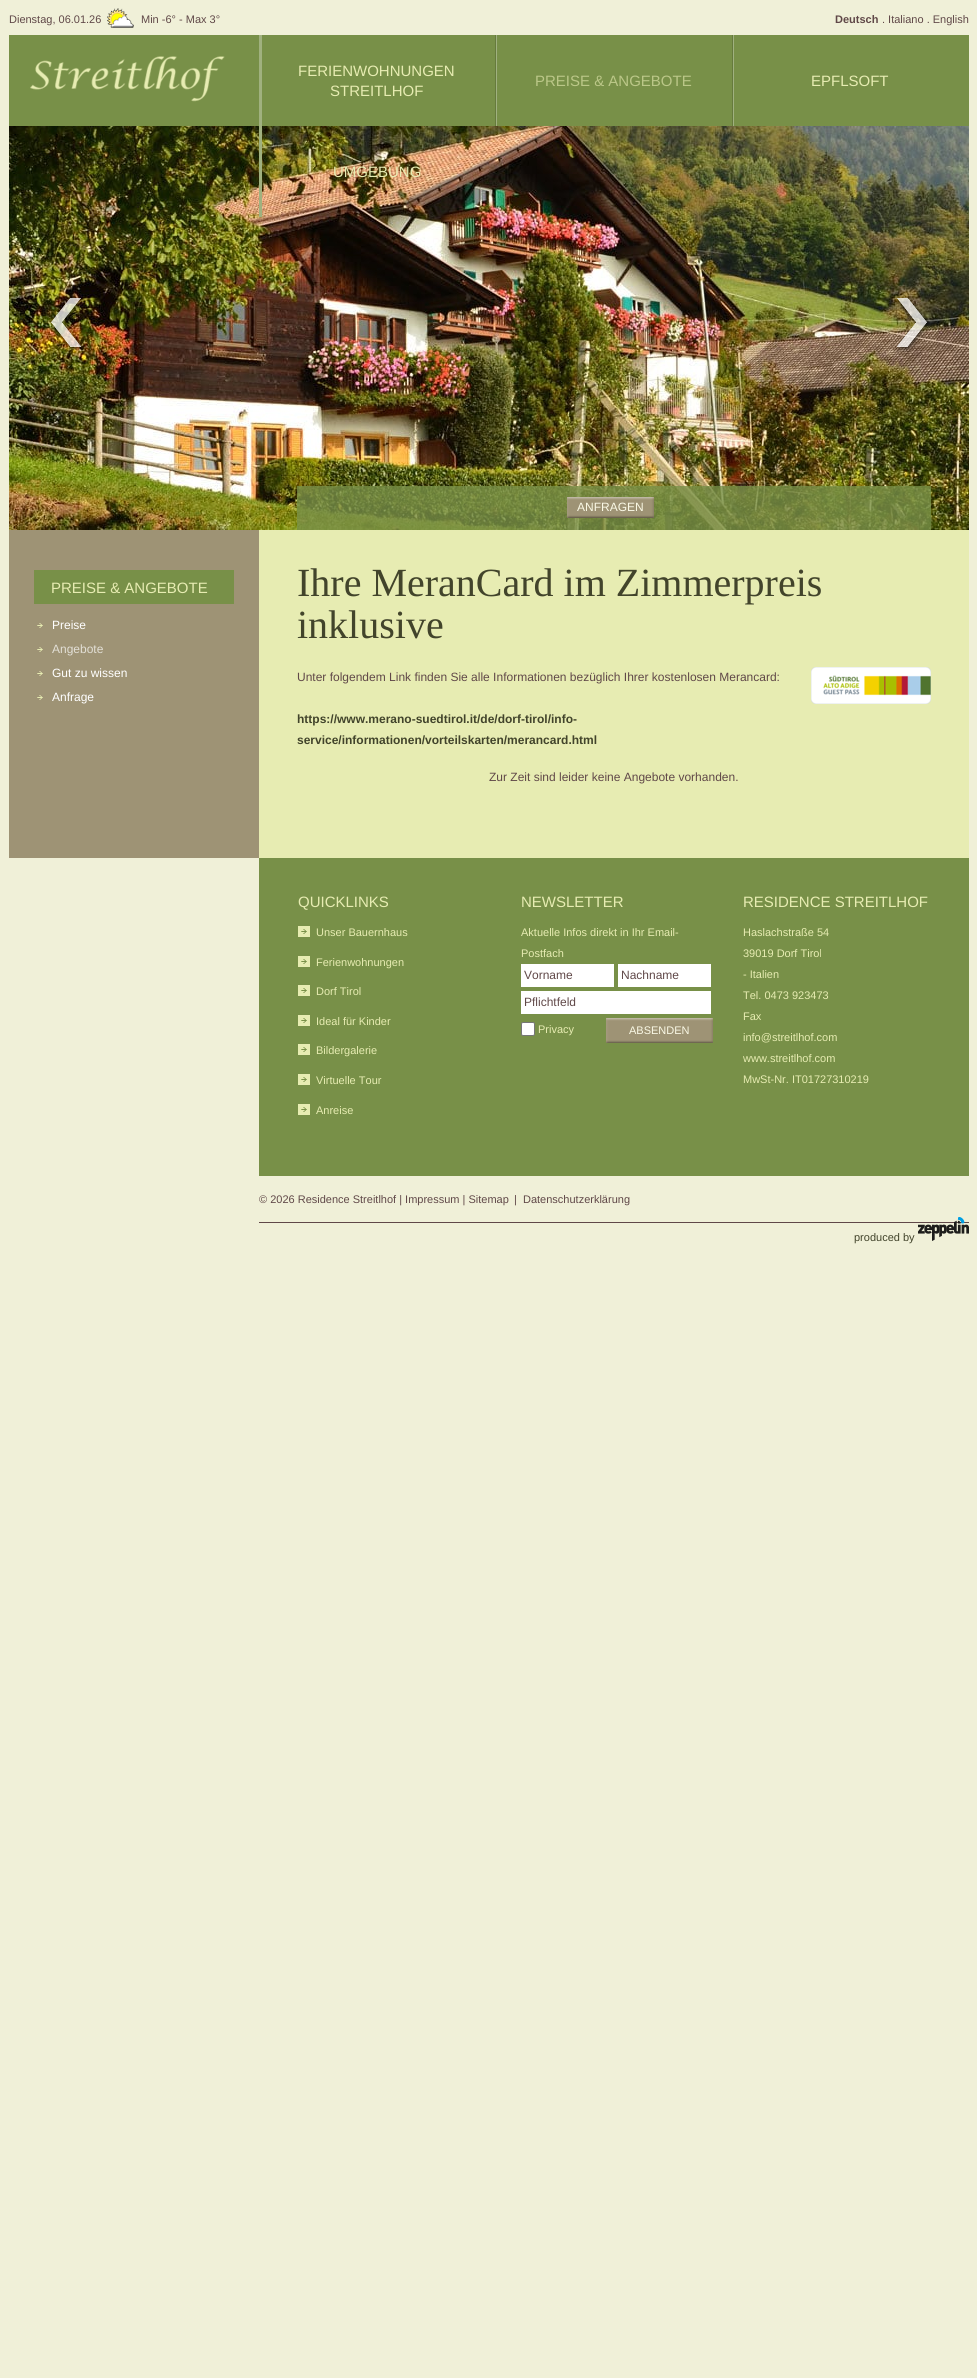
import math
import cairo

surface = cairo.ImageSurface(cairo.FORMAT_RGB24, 977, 2378)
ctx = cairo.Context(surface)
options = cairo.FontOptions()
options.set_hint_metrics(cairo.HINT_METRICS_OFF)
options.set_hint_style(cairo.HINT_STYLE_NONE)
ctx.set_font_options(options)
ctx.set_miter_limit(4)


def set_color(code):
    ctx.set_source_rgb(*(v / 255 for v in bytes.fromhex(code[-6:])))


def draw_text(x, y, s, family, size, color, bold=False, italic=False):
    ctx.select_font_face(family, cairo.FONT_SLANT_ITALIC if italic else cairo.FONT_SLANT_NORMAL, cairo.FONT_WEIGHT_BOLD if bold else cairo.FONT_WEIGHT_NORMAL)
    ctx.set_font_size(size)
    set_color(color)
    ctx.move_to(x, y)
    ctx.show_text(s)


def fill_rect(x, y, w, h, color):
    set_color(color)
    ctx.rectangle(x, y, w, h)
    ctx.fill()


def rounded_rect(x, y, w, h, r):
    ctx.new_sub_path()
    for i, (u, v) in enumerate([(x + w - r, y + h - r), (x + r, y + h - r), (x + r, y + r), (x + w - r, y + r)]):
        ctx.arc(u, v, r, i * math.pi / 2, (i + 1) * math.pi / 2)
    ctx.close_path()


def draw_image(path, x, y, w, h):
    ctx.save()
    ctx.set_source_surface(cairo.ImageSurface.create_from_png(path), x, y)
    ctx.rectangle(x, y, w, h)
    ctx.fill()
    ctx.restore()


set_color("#f0f0d8")
ctx.paint()
draw_text(9, 23, "Dienstag, 06.01.26", "Liberation Sans", 11, "#604848")
draw_image("assets/img1.png", 107, 8, 27, 20)
draw_text(141, 23, "Min -6° - Max 3°", "Liberation Sans", 11, "#604848")
draw_text(835, 23, "Deutsch", "Liberation Sans", 11, "#604848", bold=True)
draw_text(882, 23, ". Italiano . English", "Liberation Sans", 11, "#604848")
fill_rect(9, 35, 960, 91, "#789048")
draw_image("assets/img2.png", 30, 56, 195, 46)
draw_image("assets/img4.png", 9, 126, 960, 404)
fill_rect(259, 35, 3, 182, "#a0b17f")
draw_text(298, 76, "FERIENWOHNUNGEN", "Liberation Sans", 15, "#e7ecb2")
draw_text(330, 96, "STREITLHOF", "Liberation Sans", 15, "#e7ecb2")
draw_image("assets/img3.png", 495, 35, 2, 91)
draw_text(535, 86, "PREISE & ANGEBOTE", "Liberation Sans", 15, "#bbc788")
draw_image("assets/img3.png", 732, 35, 2, 91)
draw_text(811, 86, "EPFLSOFT", "Liberation Sans", 15, "#e7ecb2")
draw_text(333, 177, "UMGEBUNG", "Liberation Sans", 15, "#e7ecb2")
draw_image("assets/img5.png", 49, 297, 35, 55)
draw_image("assets/img6.png", 896, 297, 33, 55)
ctx.set_source_rgba(0.471, 0.565, 0.282, 0.8)
ctx.rectangle(297, 486, 634, 44)
ctx.fill()
fill_rect(567, 497, 87, 21, "#9e9375")
draw_image("assets/img7.png", 567, 497, 3, 21)
draw_image("assets/img8.png", 570, 497, 81, 21)
draw_text(577, 511, "ANFRAGEN", "Liberation Sans", 12, "#faf9e6")
draw_image("assets/img9.png", 651, 497, 3, 21)
draw_image("assets/img10.png", 9, 530, 960, 328)
fill_rect(34, 570, 200, 34, "#789048")
draw_text(51, 593, "PREISE & ANGEBOTE", "Liberation Sans", 15, "#e7ecb2")
draw_image("assets/img11.png", 37, 623, 6, 5)
draw_text(52, 629, "Preise", "Liberation Sans", 12, "#ffffff")
draw_image("assets/img11.png", 37, 647, 6, 5)
draw_text(52, 653, "Angebote", "Liberation Sans", 12, "#e2dfd6")
draw_image("assets/img11.png", 37, 671, 6, 5)
draw_text(52, 677, "Gut zu wissen", "Liberation Sans", 12, "#ffffff")
draw_image("assets/img11.png", 37, 695, 6, 5)
draw_text(52, 701, "Anfrage", "Liberation Sans", 12, "#ffffff")
draw_text(297, 596, "Ihre MeranCard im Zimmerpreis", "Liberation Serif", 40, "#42442b")
draw_text(297, 638, "inklusive", "Liberation Serif", 40, "#42442b")
draw_text(297, 681, "Unter folgendem Link finden Sie alle Informationen bezüglich Ihrer kostenlosen Merancard:", "Liberation Sans", 12, "#604848")
draw_image("assets/img12.png", 811, 667, 120, 37)
draw_text(297, 723, "https://www.merano-suedtirol.it/de/dorf-tirol/info-", "Liberation Sans", 12, "#42442b", bold=True)
draw_text(297, 744, "service/informationen/vorteilskarten/merancard.html", "Liberation Sans", 12, "#42442b", bold=True)
draw_text(489, 781, "Zur Zeit sind leider keine Angebote vorhanden.", "Liberation Sans", 12, "#604848")
fill_rect(259, 858, 710, 318, "#789048")
draw_text(298, 907, "QUICKLINKS", "Liberation Sans", 15, "#e7ecb2")
draw_image("assets/img13.png", 298, 926, 12, 11)
draw_text(316, 936, "Unser Bauernhaus", "Liberation Sans", 11, "#e7ecb2")
draw_image("assets/img13.png", 298, 956, 12, 11)
draw_text(316, 966, "Ferienwohnungen", "Liberation Sans", 11, "#e7ecb2")
draw_image("assets/img13.png", 298, 985, 12, 11)
draw_text(316, 995, "Dorf Tirol", "Liberation Sans", 11, "#e7ecb2")
draw_image("assets/img13.png", 298, 1015, 12, 11)
draw_text(316, 1025, "Ideal für Kinder", "Liberation Sans", 11, "#e7ecb2")
draw_image("assets/img13.png", 298, 1044, 12, 11)
draw_text(316, 1054, "Bildergalerie", "Liberation Sans", 11, "#e7ecb2")
draw_image("assets/img13.png", 298, 1074, 12, 11)
draw_text(316, 1084, "Virtuelle Tour", "Liberation Sans", 11, "#e7ecb2")
draw_image("assets/img13.png", 298, 1104, 12, 11)
draw_text(316, 1114, "Anreise", "Liberation Sans", 11, "#e7ecb2")
draw_text(521, 907, "NEWSLETTER", "Liberation Sans", 15, "#e7ecb2")
draw_text(521, 936, "Aktuelle Infos direkt in Ihr Email-", "Liberation Sans", 11, "#e7ecb2")
draw_text(521, 957, "Postfach", "Liberation Sans", 11, "#e7ecb2")
fill_rect(521, 964, 93, 23, "#ffffff")
draw_text(524, 979, "Vorname", "Liberation Sans", 12, "#604848")
fill_rect(618, 964, 93, 23, "#ffffff")
draw_text(621, 979, "Nachname", "Liberation Sans", 12, "#604848")
fill_rect(521, 991, 190, 23, "#ffffff")
draw_text(524, 1006, "Pflichtfeld", "Liberation Sans", 12, "#604848")
set_color("#ffffff")
rounded_rect(521.5, 1022.5, 13, 13, 1.5)
ctx.fill_preserve()
set_color("#767676")
ctx.set_line_width(1)
ctx.stroke()
draw_text(538, 1033, "Privacy", "Liberation Sans", 11, "#e7ecb2")
fill_rect(606, 1018, 107, 25, "#9e9375")
draw_image("assets/img14.png", 606, 1018, 5, 25)
draw_image("assets/img15.png", 611, 1018, 97, 25)
draw_text(629, 1034, "ABSENDEN", "Liberation Sans", 11, "#faf9e6")
draw_image("assets/img16.png", 708, 1018, 5, 25)
draw_text(743, 907, "RESIDENCE STREITLHOF", "Liberation Sans", 15, "#e7ecb2")
draw_text(743, 936, "Haslachstraße 54", "Liberation Sans", 11, "#e7ecb2")
draw_text(743, 957, "39019 Dorf Tirol", "Liberation Sans", 11, "#e7ecb2")
draw_text(743, 978, "- Italien", "Liberation Sans", 11, "#e7ecb2")
draw_text(743, 999, "Tel. 0473 923473", "Liberation Sans", 11, "#e7ecb2")
draw_text(743, 1020, "Fax", "Liberation Sans", 11, "#e7ecb2")
draw_text(743, 1041, "info@streitlhof.com", "Liberation Sans", 11, "#e7ecb2")
draw_text(743, 1062, "www.streitlhof.com", "Liberation Sans", 11, "#e7ecb2")
draw_text(743, 1083, "MwSt-Nr. IT01727310219", "Liberation Sans", 11, "#e7ecb2")
fill_rect(259, 1222, 710, 1, "#604848")
draw_text(259, 1203, "© 2026 Residence Streitlhof | Impressum | Sitemap", "Liberation Sans", 11, "#604848")
draw_text(514, 1203, "|", "Liberation Sans", 11, "#604848")
draw_text(523, 1203, "Datenschutzerklärung", "Liberation Sans", 11, "#604848")
draw_text(854, 1241, "produced by", "Liberation Sans", 11, "#42442b")
draw_image("assets/img17.png", 918, 1217, 51, 24)
surface.write_to_png("output.png")
